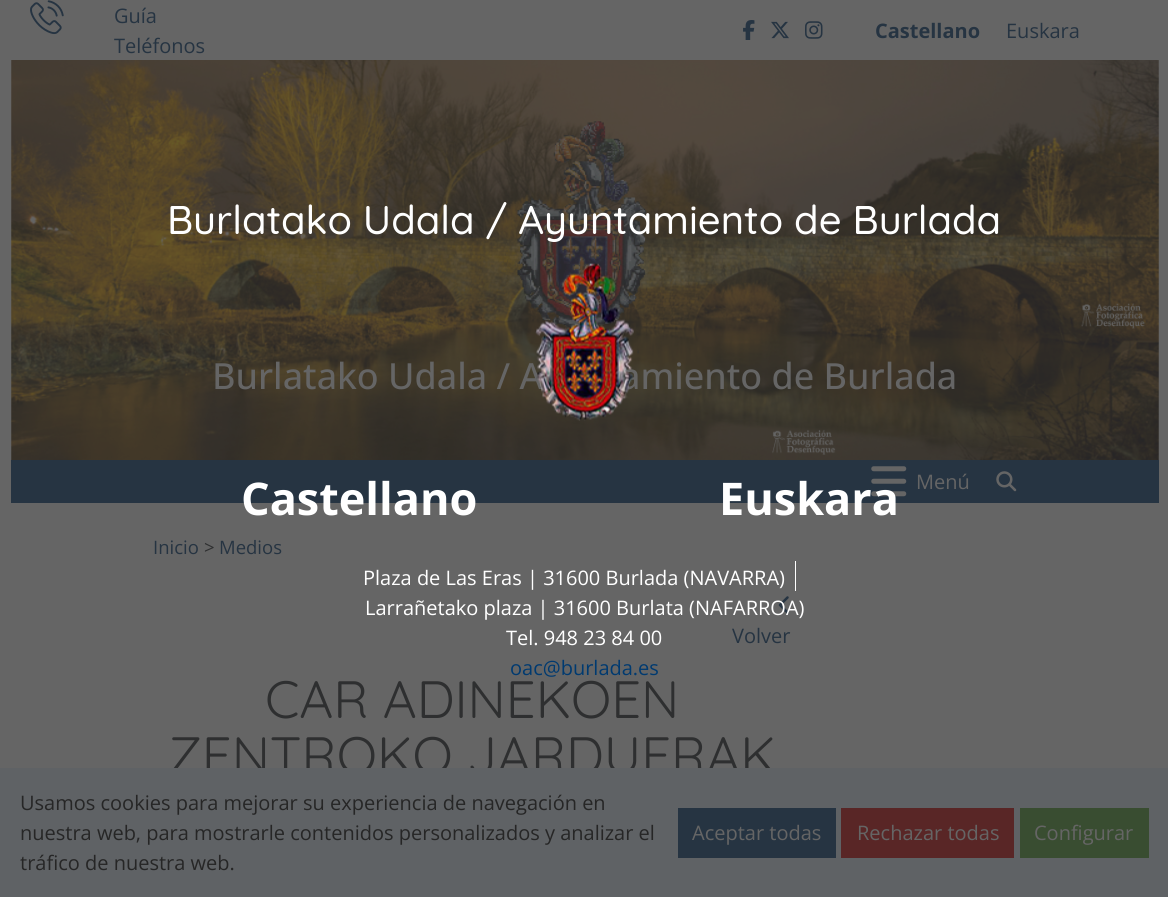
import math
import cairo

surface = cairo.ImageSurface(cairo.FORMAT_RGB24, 1168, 897)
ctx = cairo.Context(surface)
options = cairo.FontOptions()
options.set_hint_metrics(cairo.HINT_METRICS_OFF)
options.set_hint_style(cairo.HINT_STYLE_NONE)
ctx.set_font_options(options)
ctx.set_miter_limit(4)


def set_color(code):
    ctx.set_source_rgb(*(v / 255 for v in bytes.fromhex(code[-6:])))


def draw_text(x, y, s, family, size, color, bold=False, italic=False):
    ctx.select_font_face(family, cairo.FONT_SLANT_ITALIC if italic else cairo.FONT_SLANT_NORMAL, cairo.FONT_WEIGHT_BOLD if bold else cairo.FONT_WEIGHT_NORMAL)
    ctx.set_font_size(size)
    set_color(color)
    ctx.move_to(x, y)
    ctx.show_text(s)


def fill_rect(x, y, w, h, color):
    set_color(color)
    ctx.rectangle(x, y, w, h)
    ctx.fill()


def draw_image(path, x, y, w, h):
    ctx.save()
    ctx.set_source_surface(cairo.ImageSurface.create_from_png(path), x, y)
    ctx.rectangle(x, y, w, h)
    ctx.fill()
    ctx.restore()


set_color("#656565")
ctx.paint()
draw_image("assets/img1.png", 30, 0, 34, 35)
draw_text(114, 23, "Guía", "Open Sans", 20, "#263442")
draw_text(114, 53, "Teléfonos", "Open Sans", 20, "#263442")
draw_image("assets/img2.png", 743, 20, 12, 20)
draw_image("assets/img3.png", 771, 21, 18, 18)
draw_image("assets/img4.png", 805, 21, 18, 18)
draw_text(875, 38, "Castellano", "Open Sans", 20, "#263442", bold=True)
draw_text(1006, 38, "Euskara", "Open Sans", 20, "#263442")
draw_image("assets/img5.png", 11, 60, 1148, 400)
draw_image("assets/img6.png", 517, 121, 130, 208)
draw_text(212, 389, "Burlatako Udala / A", "Open Sans Medium", 36, "#656565")
draw_text(620, 389, "amiento de Burlada", "Open Sans Medium", 36, "#656565")
fill_rect(11, 460, 1148, 43, "#263442")
draw_image("assets/img7.png", 871, 466, 36, 31)
draw_text(916, 489, "Menú", "Open Sans", 20, "#656565")
draw_image("assets/img8.png", 996, 471, 21, 21)
draw_text(167, 234, "Burlatako Udala / Ayuntamiento de Burlada", "Quicksand Medium", 40, "#ffffff")
draw_image("assets/img9.png", 535, 263, 104, 158)
draw_text(241, 515, "Castellano", "Open Sans", 45, "#ffffff", bold=True)
draw_text(719, 515, "Euskara", "Open Sans", 45, "#ffffff", bold=True)
fill_rect(795, 561, 1, 30, "#ffffff")
draw_text(363, 585, "Plaza de Las Eras | 31600 Burlada (NAVARRA)", "Open Sans", 20, "#ffffff")
draw_image("assets/img10.png", 778, 596, 11, 18)
draw_text(365, 615, "Larrañetako plaza | 31600 Burlata (NAFARROA)", "Open Sans", 20, "#ffffff")
draw_text(506, 645, "Tel. 948 23 84 00", "Open Sans", 20, "#ffffff")
draw_text(510, 675, "oac@burlada.es", "Open Sans", 20, "#003a70")
draw_text(153, 554, "Inicio", "Open Sans", 18.5, "#263442")
draw_text(204, 554, ">", "Open Sans", 18.5, "#2e2f30")
draw_text(219, 554, "Medios", "Open Sans", 18.5, "#263442")
draw_text(732, 643, "Volver", "Open Sans", 20, "#263442")
draw_text(265, 718, "CAR ADINEKOEN", "Quicksand", 52.5, "#2e2f30")
draw_text(168, 774, "ZENTROKO JARDUERAK", "Quicksand", 52.5, "#2e2f30")
fill_rect(0, 768, 1168, 129, "#5f6265")
draw_text(20, 810, "Usamos cookies para mejorar su experiencia de navegación en", "Open Sans", 20, "#262626")
draw_text(20, 840, "nuestra web, para mostrarle contenidos personalizados y analizar el", "Open Sans", 20, "#262626")
draw_text(20, 870, "tráfico de nuestra web.", "Open Sans", 20, "#262626")
fill_rect(678, 808, 158, 50, "#263442")
draw_text(692, 840, "Aceptar todas", "Open Sans", 20, "#656565")
fill_rect(841, 808, 173, 50, "#592626")
draw_text(857, 840, "Rechazar todas", "Open Sans", 20, "#656565")
fill_rect(1020, 808, 129, 50, "#394d31")
draw_text(1034, 840, "Configurar", "Open Sans", 20, "#656565")
surface.write_to_png("output.png")
